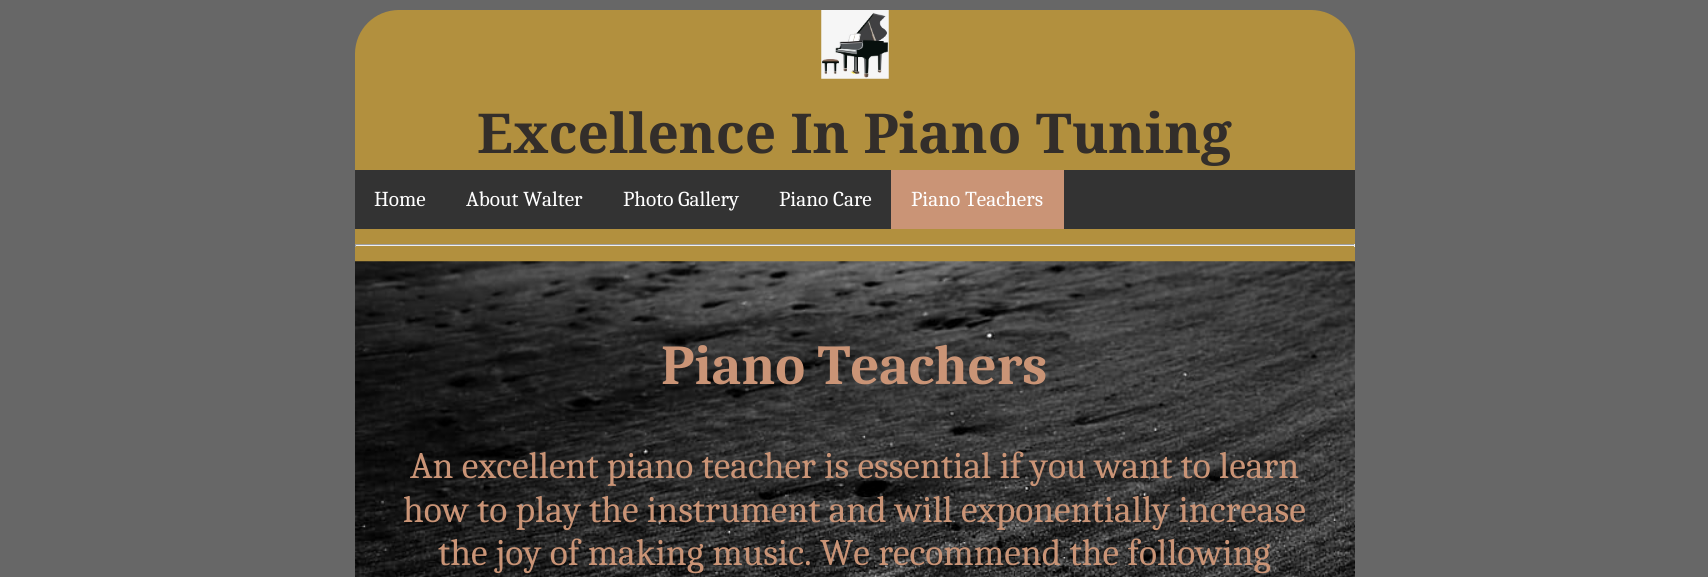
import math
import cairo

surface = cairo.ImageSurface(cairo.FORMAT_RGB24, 1708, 577)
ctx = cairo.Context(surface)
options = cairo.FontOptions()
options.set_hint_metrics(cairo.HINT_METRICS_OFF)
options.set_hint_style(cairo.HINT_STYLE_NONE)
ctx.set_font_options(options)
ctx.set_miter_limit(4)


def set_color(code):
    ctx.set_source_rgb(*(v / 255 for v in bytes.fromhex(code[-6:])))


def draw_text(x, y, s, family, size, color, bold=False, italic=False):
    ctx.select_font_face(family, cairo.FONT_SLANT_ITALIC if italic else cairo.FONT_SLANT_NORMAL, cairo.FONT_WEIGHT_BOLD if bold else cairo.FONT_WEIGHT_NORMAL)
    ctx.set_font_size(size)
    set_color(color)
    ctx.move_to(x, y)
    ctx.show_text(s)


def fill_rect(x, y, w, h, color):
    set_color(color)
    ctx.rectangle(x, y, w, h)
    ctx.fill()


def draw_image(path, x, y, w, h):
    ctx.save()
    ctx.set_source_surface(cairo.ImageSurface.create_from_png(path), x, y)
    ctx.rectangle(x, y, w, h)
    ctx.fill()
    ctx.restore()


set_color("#676767")
ctx.paint()
set_color("#b2903e")
ctx.new_path()
ctx.move_to(405, 10)
ctx.line_to(1305, 10)
ctx.curve_to(1332.5, 10, 1355, 32.5, 1355, 60)
ctx.line_to(1355, 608)
ctx.curve_to(1355, 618.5, 1346.5, 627, 1336, 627)
ctx.line_to(374, 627)
ctx.curve_to(363.5, 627, 355, 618.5, 355, 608)
ctx.line_to(355, 60)
ctx.curve_to(355, 32.5, 377.5, 10, 405, 10)
ctx.close_path()
ctx.fill()
ctx.new_path()
ctx.move_to(399, 10)
ctx.line_to(1311, 10)
ctx.curve_to(1335.5, 10, 1355, 29.5, 1355, 54)
ctx.line_to(1355, 170)
ctx.line_to(355, 170)
ctx.line_to(355, 54)
ctx.curve_to(355, 29.5, 374.5, 10, 399, 10)
ctx.close_path()
ctx.fill()
draw_image("assets/img1.png", 821, 10, 68, 69)
draw_text(477, 153, "Excellence In Piano Tuning", "Noto Serif", 55, "#332e2a", bold=True)
fill_rect(355, 170, 1000, 59, "#333333")
draw_text(374, 206, "Home", "Caladea", 21.25, "#ffffff")
draw_text(466, 206, "About Walter", "Caladea", 21.25, "#ffffff")
draw_text(623, 206, "Photo Gallery", "Caladea", 21.25, "#ffffff")
draw_text(779, 206, "Piano Care", "Caladea", 21.25, "#ffffff")
fill_rect(891, 170, 173, 59, "#ca9476")
draw_text(911, 206, "Piano Teachers", "Caladea", 21.25, "#ffffff")
fill_rect(355, 244, 1000, 1, "#9f9f9f")
fill_rect(1354, 244, 1, 3, "#eeeeee")
fill_rect(355, 245, 1000, 1, "#eeeeee")
fill_rect(355, 244, 1, 3, "#9f9f9f")
draw_image("assets/img2.png", 355, 261, 1000, 316)
draw_text(661, 384, "Piano Teachers", "Caladea", 56.25, "#ca9476", bold=True)
draw_text(410, 478, "An excellent piano teacher is essential if you want to learn", "Caladea", 37.5, "#ca9476")
draw_text(403, 522, "how to play the instrument and will exponentially increase", "Caladea", 37.5, "#ca9476")
draw_text(438, 565, "the joy of making music. We recommend the following", "Caladea", 37.5, "#ca9476")
surface.write_to_png("output.png")
